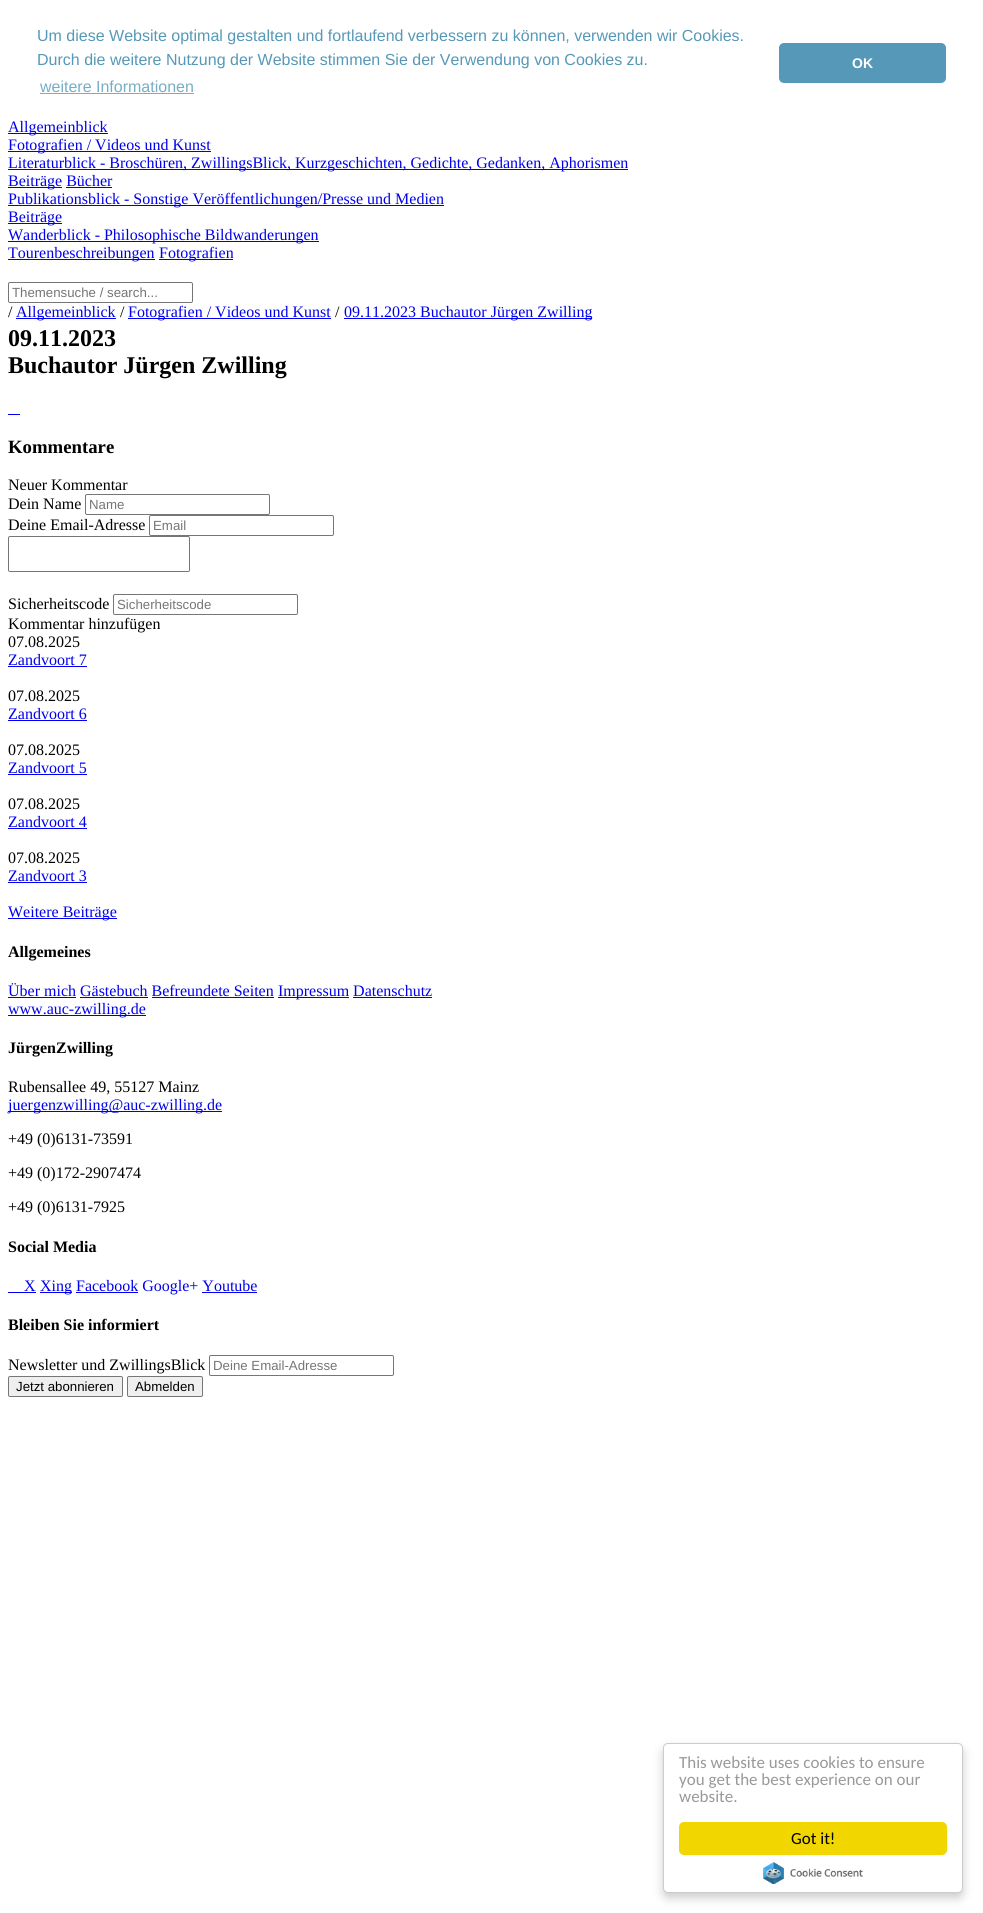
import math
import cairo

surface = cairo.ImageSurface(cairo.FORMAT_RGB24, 983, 1913)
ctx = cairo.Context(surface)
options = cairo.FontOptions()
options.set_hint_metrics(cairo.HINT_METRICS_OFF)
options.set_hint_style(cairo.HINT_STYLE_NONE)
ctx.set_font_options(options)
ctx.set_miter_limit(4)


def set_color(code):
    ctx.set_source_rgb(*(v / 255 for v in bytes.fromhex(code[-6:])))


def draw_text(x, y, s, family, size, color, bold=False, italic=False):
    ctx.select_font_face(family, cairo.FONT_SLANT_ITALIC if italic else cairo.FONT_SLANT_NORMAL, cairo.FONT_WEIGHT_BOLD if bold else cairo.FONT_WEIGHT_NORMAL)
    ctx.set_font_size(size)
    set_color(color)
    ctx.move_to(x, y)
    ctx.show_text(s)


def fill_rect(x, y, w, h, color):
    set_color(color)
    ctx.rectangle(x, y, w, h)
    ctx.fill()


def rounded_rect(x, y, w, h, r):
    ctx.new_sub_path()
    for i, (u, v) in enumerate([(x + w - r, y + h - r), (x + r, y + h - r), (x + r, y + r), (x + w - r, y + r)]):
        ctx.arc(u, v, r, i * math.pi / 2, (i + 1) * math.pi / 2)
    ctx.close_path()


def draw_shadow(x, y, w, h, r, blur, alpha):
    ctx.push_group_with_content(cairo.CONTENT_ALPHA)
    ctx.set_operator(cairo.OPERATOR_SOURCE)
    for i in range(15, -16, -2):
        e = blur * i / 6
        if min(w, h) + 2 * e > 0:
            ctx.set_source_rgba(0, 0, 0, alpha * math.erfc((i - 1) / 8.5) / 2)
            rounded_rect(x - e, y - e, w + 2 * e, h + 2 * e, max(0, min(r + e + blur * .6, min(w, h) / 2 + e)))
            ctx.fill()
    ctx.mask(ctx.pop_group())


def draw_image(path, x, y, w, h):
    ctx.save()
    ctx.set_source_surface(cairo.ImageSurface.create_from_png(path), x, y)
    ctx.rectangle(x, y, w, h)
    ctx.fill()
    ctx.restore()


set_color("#ffffff")
ctx.paint()
draw_text(37, 41, "Um diese Website optimal gestalten und fortlaufend verbessern zu können, verwenden wir Cookies.", "Liberation Sans", 16, "#5598b7")
draw_text(37, 65, "Durch die weitere Nutzung der Website stimmen Sie der Verwendung von Cookies zu.", "Liberation Sans", 16, "#5598b7")
draw_text(40, 92, "weitere Informationen", "Liberation Sans", 16, "#77adc5")
fill_rect(40, 93, 154, 1, "#77adc5")
set_color("#5598b7")
rounded_rect(779, 43, 167, 40, 5)
ctx.fill()
draw_text(852, 68, "OK", "Liberation Sans", 14, "#ffffff", bold=True)
fill_rect(8, 133, 100, 1, "#0000ee")
draw_text(8, 132, "Allgemeinblick", "Liberation Serif", 16, "#0000ee")
fill_rect(8, 151, 203, 1, "#0000ee")
draw_text(8, 150, "Fotografien / Videos und Kunst", "Liberation Serif", 16, "#0000ee")
fill_rect(8, 169, 620, 1, "#0000ee")
draw_text(8, 168, "Literaturblick - Broschüren, ZwillingsBlick, Kurzgeschichten, Gedichte, Gedanken, Aphorismen", "Liberation Serif", 16, "#0000ee")
fill_rect(8, 187, 54, 1, "#0000ee")
draw_text(8, 186, "Beiträge Bücher", "Liberation Serif", 16, "#0000ee")
fill_rect(66, 187, 46, 1, "#0000ee")
fill_rect(8, 205, 436, 1, "#0000ee")
draw_text(8, 204, "Publikationsblick - Sonstige Veröffentlichungen/Presse und Medien", "Liberation Serif", 16, "#0000ee")
fill_rect(8, 223, 54, 1, "#0000ee")
draw_text(8, 222, "Beiträge", "Liberation Serif", 16, "#0000ee")
fill_rect(8, 241, 311, 1, "#0000ee")
draw_text(8, 240, "Wanderblick - Philosophische Bildwanderungen", "Liberation Serif", 16, "#0000ee")
fill_rect(8, 259, 147, 1, "#0000ee")
draw_text(8, 258, "Tourenbeschreibungen", "Liberation Serif", 16, "#0000ee")
fill_rect(159, 259, 74, 1, "#0000ee")
draw_text(159, 258, "Fotografien", "Liberation Serif", 16, "#0000ee")
rounded_rect(8.5, 282.5, 184, 20, 1.5)
set_color("#767676")
ctx.set_line_width(1)
ctx.stroke()
draw_text(12, 297, "Themensuche / search...", "Liberation Sans", 13.25, "#757575")
draw_text(8, 317, "/", "Liberation Serif", 16, "#000000")
fill_rect(16, 318, 100, 1, "#0000ee")
draw_text(16, 317, "Allgemeinblick", "Liberation Serif", 16, "#0000ee")
draw_text(120, 317, "/", "Liberation Serif", 16, "#000000")
fill_rect(128, 318, 203, 1, "#0000ee")
draw_text(128, 317, "Fotografien / Videos und Kunst", "Liberation Serif", 16, "#0000ee")
draw_text(335, 317, "/", "Liberation Serif", 16, "#000000")
fill_rect(344, 318, 248, 1, "#0000ee")
draw_text(344, 317, "09.11.2023 Buchautor Jürgen Zwilling", "Liberation Serif", 16, "#0000ee")
draw_text(8, 346, "09.11.2023", "Liberation Serif", 24, "#000000", bold=True)
draw_text(8, 373, "Buchautor Jürgen Zwilling", "Liberation Serif", 24, "#000000", bold=True)
fill_rect(8, 414, 12, 1, "#0000ee")
draw_text(8, 453, "Kommentare", "Liberation Serif", 18.75, "#000000", bold=True)
draw_text(8, 490, "Neuer Kommentar", "Liberation Serif", 16, "#000000")
draw_text(8, 509, "Dein Name", "Liberation Serif", 16, "#000000")
rounded_rect(85.5, 494.5, 184, 20, 1.5)
set_color("#767676")
ctx.stroke()
draw_text(89, 509, "Name", "Liberation Sans", 13.25, "#757575")
draw_text(8, 530, "Deine Email-Adresse", "Liberation Serif", 16, "#000000")
rounded_rect(149.5, 515.5, 184, 20, 1.5)
set_color("#767676")
ctx.stroke()
draw_text(153, 530, "Email", "Liberation Sans", 13.25, "#757575")
rounded_rect(8.5, 536.5, 181, 35, 1.5)
set_color("#767676")
ctx.stroke()
draw_text(8, 609, "Sicherheitscode", "Liberation Serif", 16, "#000000")
rounded_rect(113.5, 594.5, 184, 20, 1.5)
set_color("#767676")
ctx.stroke()
draw_text(117, 609, "Sicherheitscode", "Liberation Sans", 13.25, "#757575")
draw_text(8, 629, "Kommentar hinzufügen", "Liberation Serif", 16, "#000000")
draw_text(8, 647, "07.08.2025", "Liberation Serif", 16, "#000000")
draw_text(8, 665, "Zandvoort 7", "Liberation Serif", 16, "#0000ee")
fill_rect(8, 666, 79, 1, "#0000ee")
draw_text(8, 701, "07.08.2025", "Liberation Serif", 16, "#000000")
draw_text(8, 719, "Zandvoort 6", "Liberation Serif", 16, "#0000ee")
fill_rect(8, 720, 79, 1, "#0000ee")
draw_text(8, 755, "07.08.2025", "Liberation Serif", 16, "#000000")
draw_text(8, 773, "Zandvoort 5", "Liberation Serif", 16, "#0000ee")
fill_rect(8, 774, 79, 1, "#0000ee")
draw_text(8, 809, "07.08.2025", "Liberation Serif", 16, "#000000")
draw_text(8, 827, "Zandvoort 4", "Liberation Serif", 16, "#0000ee")
fill_rect(8, 828, 79, 1, "#0000ee")
draw_text(8, 863, "07.08.2025", "Liberation Serif", 16, "#000000")
draw_text(8, 881, "Zandvoort 3", "Liberation Serif", 16, "#0000ee")
fill_rect(8, 882, 79, 1, "#0000ee")
fill_rect(8, 918, 109, 1, "#0000ee")
draw_text(8, 917, "Weitere Beiträge", "Liberation Serif", 16, "#0000ee")
draw_text(8, 957, "Allgemeines", "Liberation Serif", 16, "#000000", bold=True)
draw_text(8, 996, "Über mich Gästebuch Befreundete Seiten", "Liberation Serif", 16, "#0000ee")
fill_rect(8, 997, 68, 1, "#0000ee")
fill_rect(278, 997, 71, 1, "#0000ee")
draw_text(278, 996, "Impressum Datenschutz", "Liberation Serif", 16, "#0000ee")
fill_rect(80, 997, 68, 1, "#0000ee")
fill_rect(152, 997, 122, 1, "#0000ee")
fill_rect(353, 997, 79, 1, "#0000ee")
fill_rect(8, 1015, 138, 1, "#0000ee")
draw_text(8, 1014, "www.auc-zwilling.de", "Liberation Serif", 16, "#0000ee")
draw_text(8, 1053, "JürgenZwilling", "Liberation Serif", 16, "#000000", bold=True)
draw_text(8, 1092, "Rubensallee 49, 55127 Mainz", "Liberation Serif", 16, "#000000")
fill_rect(8, 1111, 214, 1, "#0000ee")
draw_text(8, 1110, "juergenzwilling@auc-zwilling.de", "Liberation Serif", 16, "#0000ee")
draw_text(8, 1144, "+49 (0)6131-73591", "Liberation Serif", 16, "#000000")
draw_text(8, 1178, "+49 (0)172-2907474", "Liberation Serif", 16, "#000000")
draw_text(8, 1212, "+49 (0)6131-7925", "Liberation Serif", 16, "#000000")
draw_text(8, 1252, "Social Media", "Liberation Serif", 16, "#000000", bold=True)
draw_text(24, 1291, "X", "Liberation Serif", 16, "#0000ee")
fill_rect(8, 1292, 28, 1, "#0000ee")
fill_rect(40, 1292, 32, 1, "#0000ee")
draw_text(40, 1291, "Xing Facebook Google+ Youtube", "Liberation Serif", 16, "#0000ee")
fill_rect(76, 1292, 62, 1, "#0000ee")
fill_rect(202, 1292, 55, 1, "#0000ee")
draw_text(8, 1330, "Bleiben Sie informiert", "Liberation Serif", 16, "#000000", bold=True)
draw_text(8, 1370, "Newsletter und ZwillingsBlick", "Liberation Serif", 16, "#000000")
rounded_rect(209.5, 1355.5, 184, 20, 1.5)
set_color("#767676")
ctx.stroke()
draw_text(213, 1370, "Deine Email-Adresse", "Liberation Sans", 13.25, "#757575")
set_color("#efefef")
rounded_rect(8.5, 1376.5, 114, 20, 1.5)
ctx.fill_preserve()
set_color("#767676")
ctx.stroke()
draw_text(16, 1391, "Jetzt abonnieren", "Liberation Sans", 13.25, "#000000")
set_color("#efefef")
rounded_rect(127.5, 1376.5, 75, 20, 1.5)
ctx.fill_preserve()
set_color("#767676")
ctx.stroke()
draw_text(135, 1391, "Abmelden", "Liberation Sans", 13.25, "#000000")
set_color("#000000")
draw_shadow(663, 1748, 300, 150, 5, 5, 0.2)
set_color("#ffffff")
rounded_rect(663.5, 1743.5, 299, 149, 4.5)
ctx.fill_preserve()
set_color("#cccccc")
ctx.stroke()
draw_text(679, 1768, "This website uses cookies to ensure", "Carlito", 17, "#999999")
draw_text(679, 1785, "you get the best experience on our", "Carlito", 17, "#999999")
draw_text(679, 1802, "website.", "Carlito", 17, "#999999")
set_color("#f1d600")
rounded_rect(679, 1822, 268, 33, 5)
ctx.fill()
draw_text(791, 1844, "Got it!", "Carlito", 17, "#000000")
draw_image("assets/img1.png", 763, 1862, 100, 22)
surface.write_to_png("output.png")
